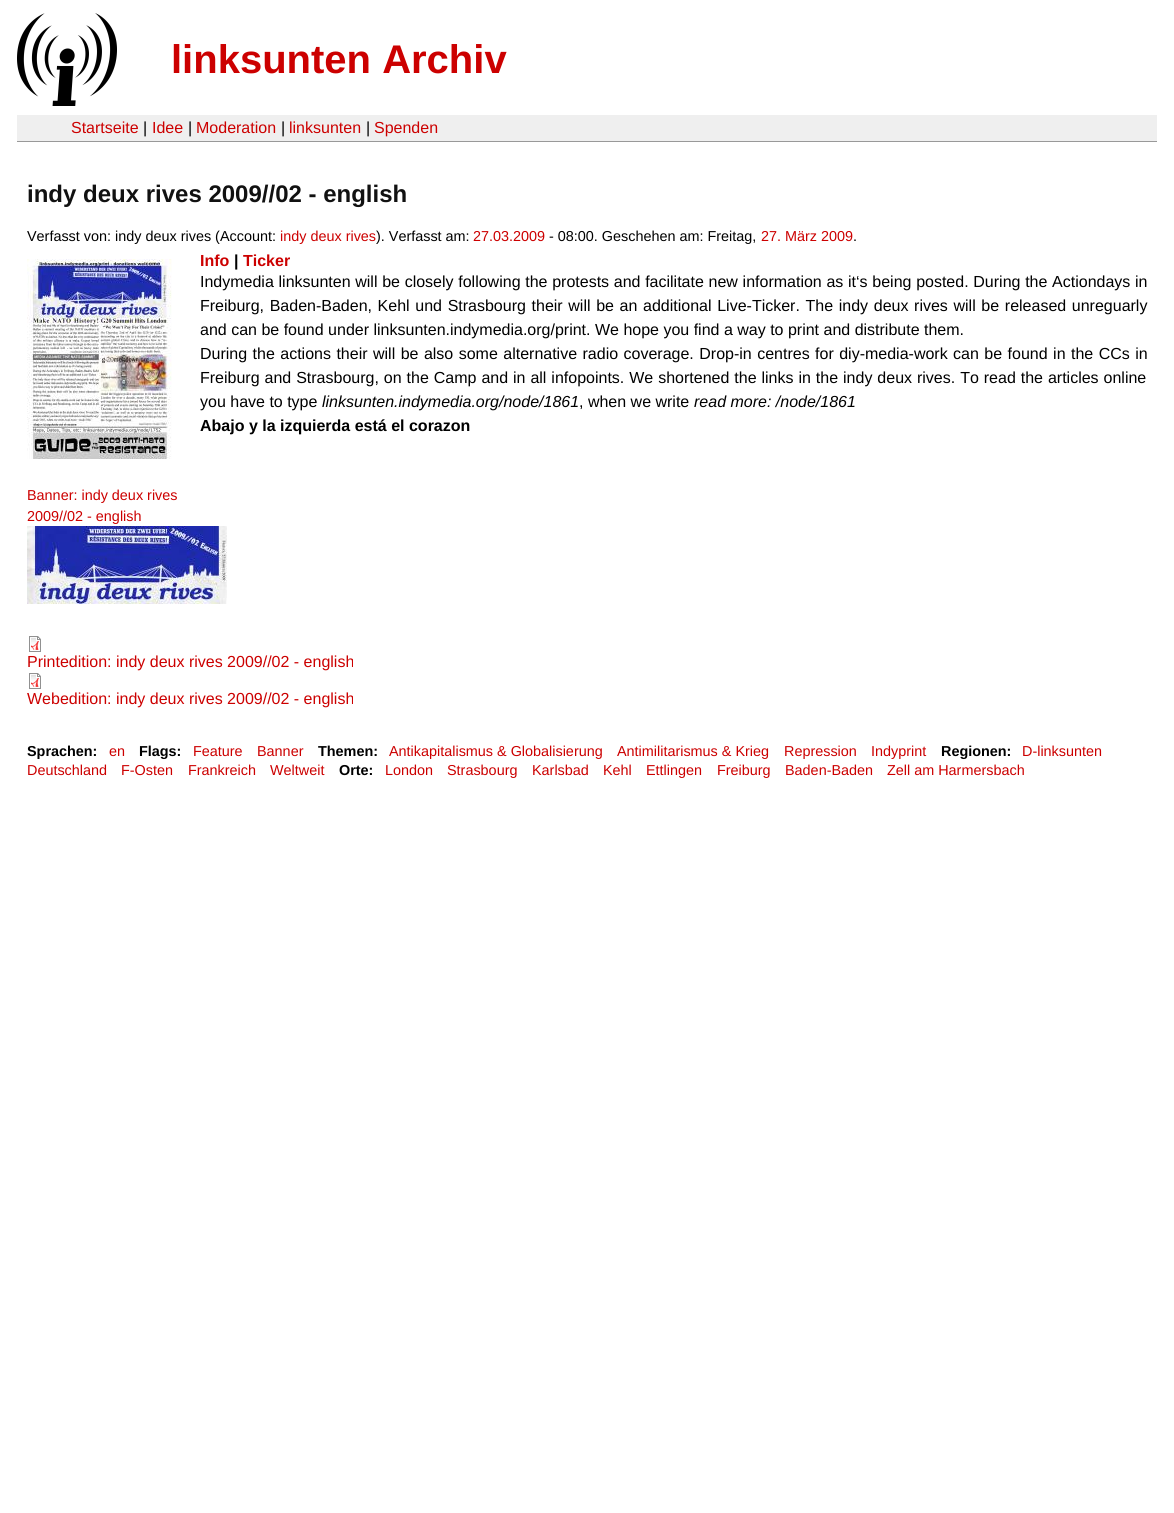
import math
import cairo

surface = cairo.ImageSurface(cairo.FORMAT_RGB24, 1174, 1513)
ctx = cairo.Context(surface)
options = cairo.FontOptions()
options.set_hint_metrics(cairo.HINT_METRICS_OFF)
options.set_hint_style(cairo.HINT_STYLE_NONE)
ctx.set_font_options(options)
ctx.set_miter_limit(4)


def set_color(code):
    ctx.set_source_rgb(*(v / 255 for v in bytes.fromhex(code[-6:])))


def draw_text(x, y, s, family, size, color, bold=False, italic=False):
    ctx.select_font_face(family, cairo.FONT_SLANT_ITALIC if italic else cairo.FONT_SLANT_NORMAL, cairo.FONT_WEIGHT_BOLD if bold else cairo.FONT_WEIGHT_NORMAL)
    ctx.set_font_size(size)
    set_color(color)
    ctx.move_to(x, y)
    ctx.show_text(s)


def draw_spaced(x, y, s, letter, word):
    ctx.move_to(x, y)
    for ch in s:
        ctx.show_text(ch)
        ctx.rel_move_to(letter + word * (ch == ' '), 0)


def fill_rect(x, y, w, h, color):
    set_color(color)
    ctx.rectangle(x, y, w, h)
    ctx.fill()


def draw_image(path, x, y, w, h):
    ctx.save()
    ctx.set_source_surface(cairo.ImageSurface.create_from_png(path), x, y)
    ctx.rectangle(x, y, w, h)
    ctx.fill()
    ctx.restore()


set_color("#ffffff")
ctx.paint()
draw_image("assets/img1.png", 17, 13, 100, 93)
draw_text(171, 73, "linksunten Archiv", "Liberation Sans", 40, "#cc0000", bold=True)
fill_rect(17, 115, 1140, 26, "#efefef")
fill_rect(17, 141, 1140, 1, "#999999")
draw_text(71, 133, "Startseite", "Liberation Sans", 16, "#cc0000")
draw_text(143, 133, "|", "Liberation Sans", 16, "#000000")
draw_text(152, 133, "Idee", "Liberation Sans", 16, "#cc0000")
draw_text(188, 133, "|", "Liberation Sans", 16, "#000000")
draw_text(196, 133, "Moderation", "Liberation Sans", 16, "#cc0000")
draw_text(281, 133, "|", "Liberation Sans", 16, "#000000")
draw_text(289, 133, "linksunten", "Liberation Sans", 16, "#cc0000")
draw_text(366, 133, "|", "Liberation Sans", 16, "#000000")
draw_text(374, 133, "Spenden", "Liberation Sans", 16, "#cc0000")
draw_text(27, 202, "indy deux rives 2009//02 - english", "Liberation Sans", 24, "#111111", bold=True)
draw_text(27, 241, "Verfasst von: indy deux rives (Account:", "Liberation Sans", 14.4, "#000000")
draw_text(280, 241, "indy deux rives", "Liberation Sans", 14.4, "#cc0000")
draw_text(376, 241, "). Verfasst am:", "Liberation Sans", 14.4, "#000000")
draw_text(473, 241, "27.03.2009", "Liberation Sans", 14.4, "#cc0000")
draw_text(549, 241, "- 08:00. Geschehen am: Freitag,", "Liberation Sans", 14.4, "#000000")
draw_text(761, 241, "27. März 2009", "Liberation Sans", 14.4, "#cc0000")
draw_text(853, 241, ".", "Liberation Sans", 14.4, "#000000")
draw_image("assets/img2.png", 27, 259, 145, 200)
draw_text(200, 266, "Info", "Liberation Sans", 16, "#cc0000", bold=True)
draw_text(234, 266, "|", "Liberation Sans", 16, "#000000", bold=True)
draw_text(243, 266, "Ticker", "Liberation Sans", 16, "#cc0000", bold=True)
ctx.select_font_face("Liberation Sans")
set_color("#000000")
draw_spaced(200, 287, "Indymedia linksunten will be closely following the protests and facilitate new information as it‘s being posted. During the Actiondays in", 0, 0.25)
draw_spaced(200, 311, "Freiburg, Baden-Baden, Kehl und Strasbourg their will be an additional Live-Ticker. The indy deux rives will be released unreguarly", 0, 1.2)
draw_text(200, 335, "and can be found under linksunten.indymedia.org/print. We hope you find a way to print and distribute them.", "Liberation Sans", 16, "#000000")
draw_spaced(200, 359, "During the actions their will be also some alternative radio coverage. Drop-in centres for diy-media-work can be found in the CCs in", 0, 1)
draw_spaced(200, 383, "Freiburg and Strasbourg, on the Camp and in all infopoints. We shortened the links in the indy deux rives. To read the articles online", 0, 0.5)
draw_text(200, 407, "you have to type", "Liberation Sans", 16, "#000000")
draw_text(322, 407, "linksunten.indymedia.org/node/1861", "Liberation Sans", 16, "#000000", italic=True)
draw_text(579, 407, ", when we write", "Liberation Sans", 16, "#000000")
draw_text(694, 407, "read more: /node/1861", "Liberation Sans", 16, "#000000", italic=True)
draw_text(200, 431, "Abajo y la izquierda está el corazon", "Liberation Sans", 16, "#000000", bold=True)
draw_text(27, 500, "Banner: indy deux rives", "Liberation Sans", 14.4, "#cc0000")
draw_text(27, 521, "2009//02 - english", "Liberation Sans", 14.4, "#cc0000")
draw_image("assets/img3.png", 27, 526, 200, 78)
draw_image("assets/img4.png", 29, 636, 12, 16)
draw_text(27, 667, "Printedition: indy deux rives 2009//02 - english", "Liberation Sans", 16, "#cc0000")
draw_image("assets/img4.png", 29, 673, 12, 16)
draw_text(27, 704, "Webedition: indy deux rives 2009//02 - english", "Liberation Sans", 16, "#cc0000")
draw_text(27, 756, "Sprachen:", "Liberation Sans", 14.4, "#000000", bold=True)
draw_text(109, 756, "en", "Liberation Sans", 14.4, "#cc0000")
draw_text(941, 756, "Regionen:", "Liberation Sans", 14.4, "#000000", bold=True)
draw_text(1022, 756, "D-linksunten", "Liberation Sans", 14.4, "#cc0000")
draw_text(27, 775, "Deutschland", "Liberation Sans", 14.4, "#cc0000")
draw_text(121, 775, "F-Osten", "Liberation Sans", 14.4, "#cc0000")
draw_text(188, 775, "Frankreich", "Liberation Sans", 14.4, "#cc0000")
draw_text(270, 775, "Weltweit", "Liberation Sans", 14.4, "#cc0000")
draw_text(139, 756, "Flags:", "Liberation Sans", 14.4, "#000000", bold=True)
draw_text(193, 756, "Feature", "Liberation Sans", 14.4, "#cc0000")
draw_text(257, 756, "Banner", "Liberation Sans", 14.4, "#cc0000")
draw_text(318, 756, "Themen:", "Liberation Sans", 14.4, "#000000", bold=True)
draw_text(389, 756, "Antikapitalismus & Globalisierung", "Liberation Sans", 14.4, "#cc0000")
draw_text(617, 756, "Antimilitarismus & Krieg", "Liberation Sans", 14.4, "#cc0000")
draw_text(784, 756, "Repression", "Liberation Sans", 14.4, "#cc0000")
draw_text(871, 756, "Indyprint", "Liberation Sans", 14.4, "#cc0000")
draw_text(339, 775, "Orte:", "Liberation Sans", 14.4, "#000000", bold=True)
draw_text(385, 775, "London", "Liberation Sans", 14.4, "#cc0000")
draw_text(447, 775, "Strasbourg", "Liberation Sans", 14.4, "#cc0000")
draw_text(532, 775, "Karlsbad", "Liberation Sans", 14.4, "#cc0000")
draw_text(603, 775, "Kehl", "Liberation Sans", 14.4, "#cc0000")
draw_text(646, 775, "Ettlingen", "Liberation Sans", 14.4, "#cc0000")
draw_text(717, 775, "Freiburg", "Liberation Sans", 14.4, "#cc0000")
draw_text(785, 775, "Baden-Baden", "Liberation Sans", 14.4, "#cc0000")
draw_text(887, 775, "Zell am Harmersbach", "Liberation Sans", 14.4, "#cc0000")
surface.write_to_png("output.png")
